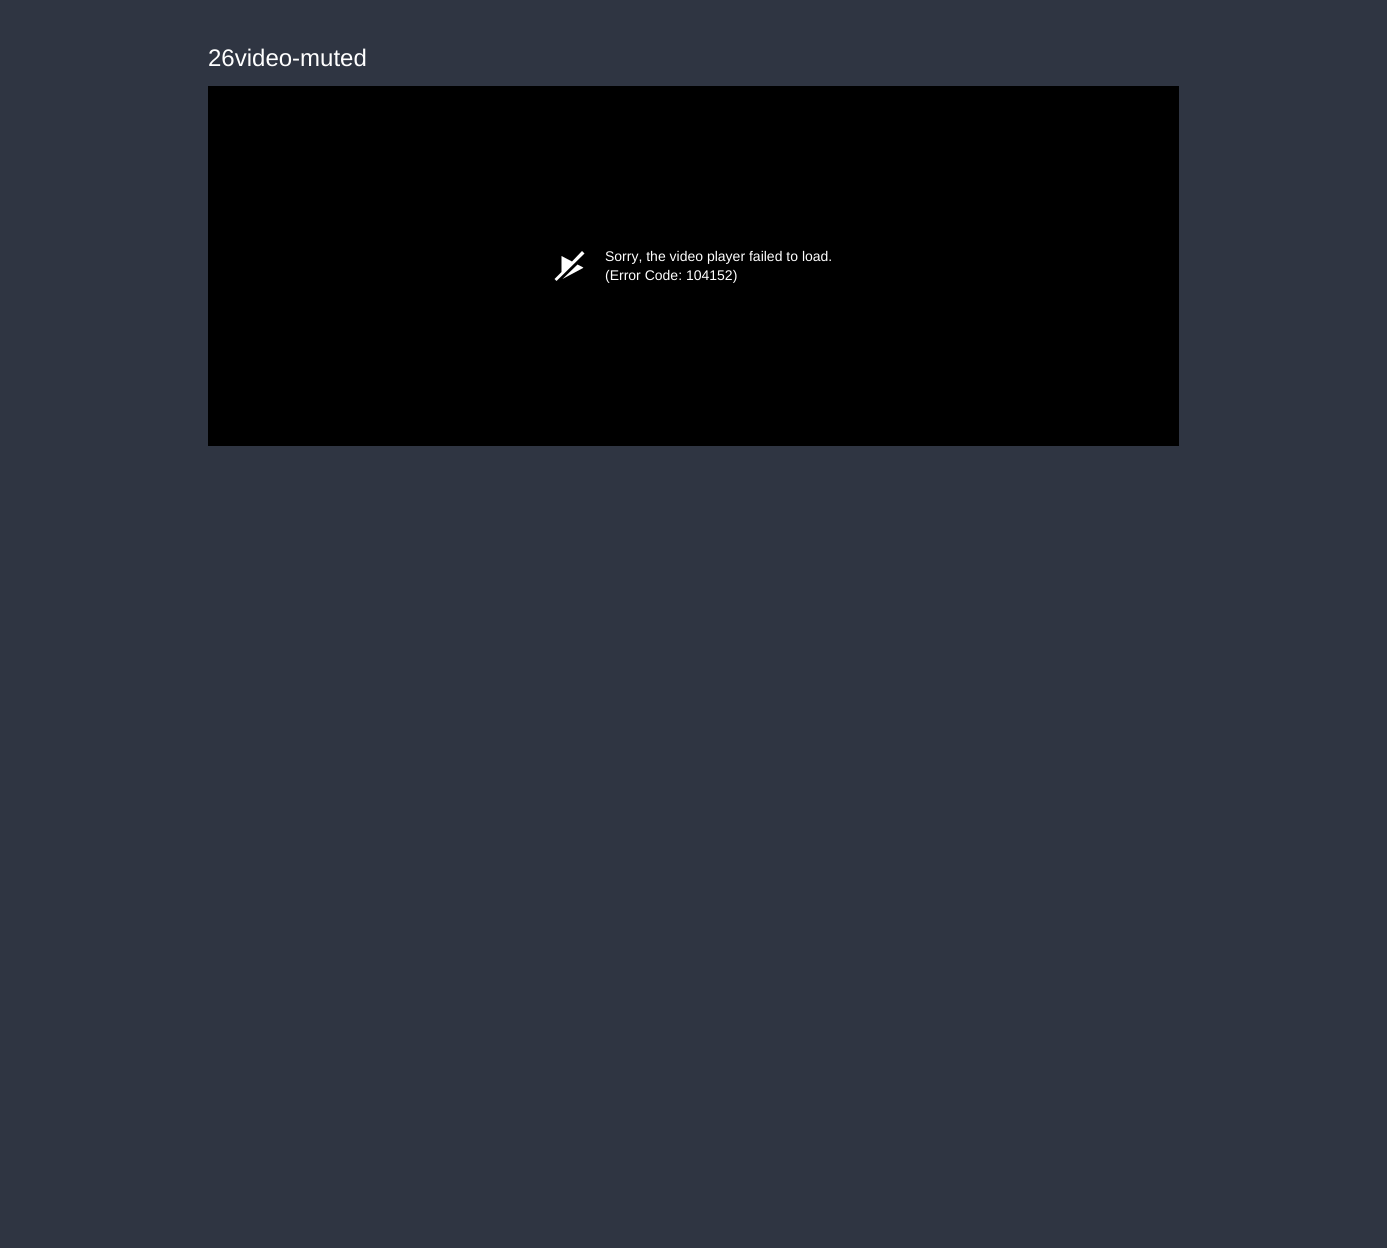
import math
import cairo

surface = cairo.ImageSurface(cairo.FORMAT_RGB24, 1387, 1248)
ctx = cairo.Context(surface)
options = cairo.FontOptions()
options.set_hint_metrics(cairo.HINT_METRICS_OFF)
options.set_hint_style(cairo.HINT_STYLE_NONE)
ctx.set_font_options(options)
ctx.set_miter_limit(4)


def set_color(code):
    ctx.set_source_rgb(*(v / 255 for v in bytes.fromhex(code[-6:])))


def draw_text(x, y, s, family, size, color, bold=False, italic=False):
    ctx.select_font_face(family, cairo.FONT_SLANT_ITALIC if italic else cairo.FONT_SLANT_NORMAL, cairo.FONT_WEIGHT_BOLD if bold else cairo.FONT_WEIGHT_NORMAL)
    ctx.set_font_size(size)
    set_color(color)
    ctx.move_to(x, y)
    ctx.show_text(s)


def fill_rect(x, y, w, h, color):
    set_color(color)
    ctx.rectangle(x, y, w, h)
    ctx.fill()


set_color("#2f3542")
ctx.paint()
draw_text(208, 66, "26video-muted", "Liberation Sans", 24, "#ffffff")
fill_rect(208, 86, 971, 360, "#000000")
set_color("#ffffff")
ctx.new_path()
ctx.move_to(583, 268)
ctx.line_to(562.5, 279)
ctx.line_to(577.5, 264.5)
ctx.curve_to(583, 267.5, 584, 267.5, 583, 268)
ctx.close_path()
ctx.move_to(582, 251)
ctx.line_to(572, 261.5)
ctx.line_to(561.5, 256)
ctx.line_to(561.5, 272)
ctx.line_to(554.5, 279)
ctx.line_to(556.5, 281)
ctx.line_to(584.5, 253.5)
ctx.close_path()
ctx.fill()
draw_text(605, 261, "Sorry, the video player failed to load.", "Liberation Sans", 14, "#ffffff")
draw_text(605, 280, "(Error Code: 104152)", "Liberation Sans", 14, "#ffffff")
surface.write_to_png("output.png")
